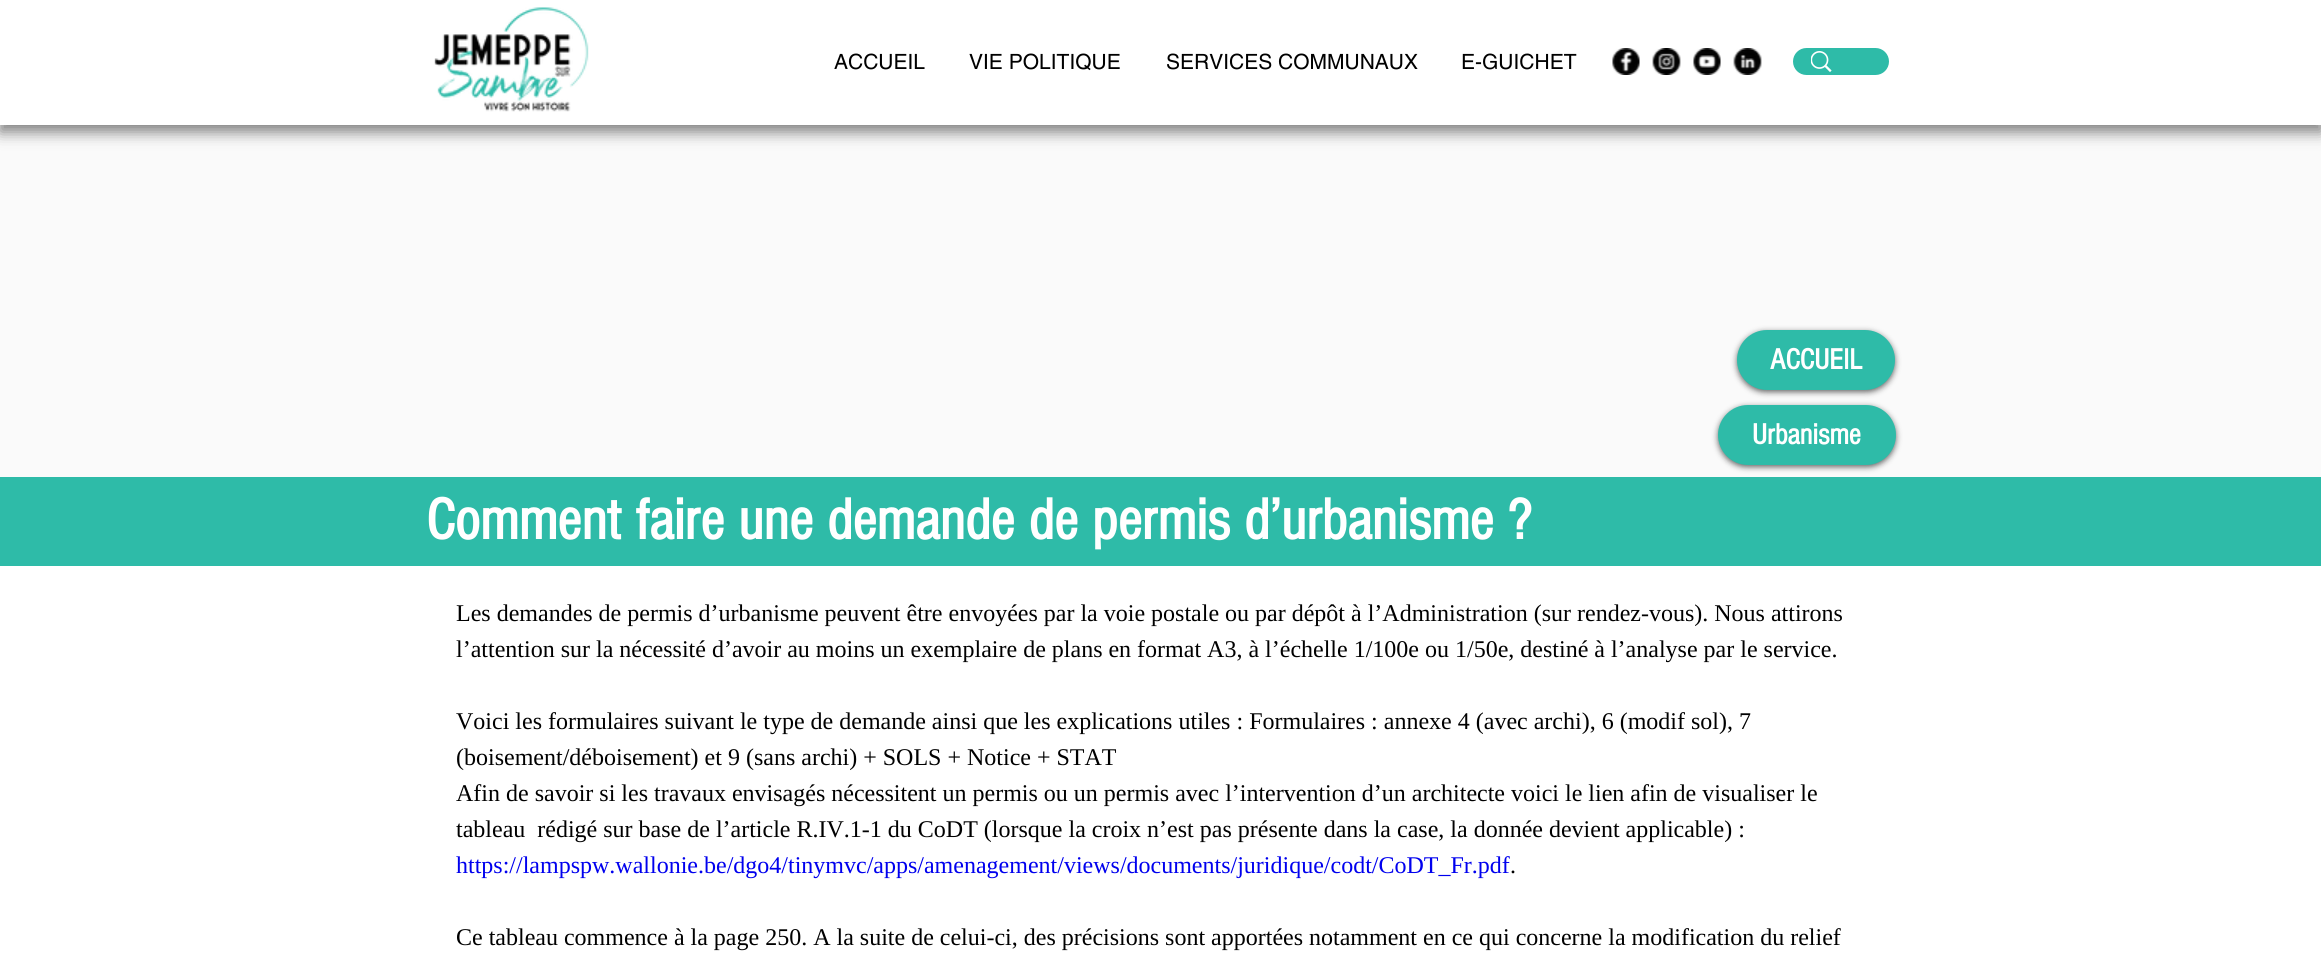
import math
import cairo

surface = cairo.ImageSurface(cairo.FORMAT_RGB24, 2321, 958)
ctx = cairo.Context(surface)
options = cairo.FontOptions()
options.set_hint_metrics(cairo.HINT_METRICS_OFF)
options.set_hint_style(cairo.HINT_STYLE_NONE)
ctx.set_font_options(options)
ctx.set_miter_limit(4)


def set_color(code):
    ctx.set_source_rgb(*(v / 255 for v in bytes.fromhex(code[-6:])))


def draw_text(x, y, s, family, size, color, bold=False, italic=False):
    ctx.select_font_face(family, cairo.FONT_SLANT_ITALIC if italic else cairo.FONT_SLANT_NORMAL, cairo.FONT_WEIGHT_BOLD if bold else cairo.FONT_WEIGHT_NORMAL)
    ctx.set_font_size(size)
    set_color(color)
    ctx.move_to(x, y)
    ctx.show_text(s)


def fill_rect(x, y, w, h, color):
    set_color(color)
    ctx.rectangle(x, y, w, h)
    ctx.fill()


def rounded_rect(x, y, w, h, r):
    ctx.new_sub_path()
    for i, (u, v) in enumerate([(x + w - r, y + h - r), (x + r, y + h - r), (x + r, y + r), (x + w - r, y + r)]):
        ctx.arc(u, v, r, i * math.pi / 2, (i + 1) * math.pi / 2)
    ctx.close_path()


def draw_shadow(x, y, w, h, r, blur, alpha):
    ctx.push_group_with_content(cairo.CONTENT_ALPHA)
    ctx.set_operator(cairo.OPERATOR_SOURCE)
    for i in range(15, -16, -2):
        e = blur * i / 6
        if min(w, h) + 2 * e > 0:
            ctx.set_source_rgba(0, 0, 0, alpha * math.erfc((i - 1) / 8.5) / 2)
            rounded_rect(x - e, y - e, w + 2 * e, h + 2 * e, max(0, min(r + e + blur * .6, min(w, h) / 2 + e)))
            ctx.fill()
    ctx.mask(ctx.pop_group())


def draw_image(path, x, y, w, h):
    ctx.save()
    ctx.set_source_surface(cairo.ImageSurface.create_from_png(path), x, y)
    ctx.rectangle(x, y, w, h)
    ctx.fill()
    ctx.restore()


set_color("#ffffff")
ctx.paint()
fill_rect(0, 125, 2321, 352, "#fafafa")
set_color("#000000")
draw_shadow(0, 8, 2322, 124, 0, 7.5, 0.5)
fill_rect(0, 0, 2321, 125, "#ffffff")
draw_image("assets/img1.png", 434, 7, 155, 105)
draw_text(834, 69, "ACCUEIL", "helvetica", 21, "#000000")
draw_text(969, 69, "VIE POLITIQUE", "helvetica", 21, "#000000")
draw_text(1166, 69, "SERVICES COMMUNAUX", "helvetica", 21, "#000000")
draw_text(1461, 69, "E-GUICHET", "helvetica", 21, "#000000")
draw_image("assets/img2.png", 1612, 48, 28, 27)
draw_image("assets/img3.png", 1652, 48, 29, 27)
draw_image("assets/img4.png", 1693, 48, 28, 27)
draw_image("assets/img5.png", 1733, 48, 29, 27)
set_color("#2ebba8")
rounded_rect(1793, 48, 96, 27, 13.5)
ctx.fill()
draw_image("assets/img6.png", 1811, 51, 21, 21)
set_color("#000000")
draw_shadow(1737, 332, 158, 60, 30, 3, 0.6)
set_color("#2ebba8")
rounded_rect(1737, 330, 158, 60, 30)
ctx.fill()
draw_text(1770, 369, "ACCUEIL", "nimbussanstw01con", 30, "#ffffff", bold=True)
set_color("#000000")
draw_shadow(1718, 407, 178, 60, 30, 3, 0.6)
set_color("#2ebba8")
rounded_rect(1718, 405, 178, 60, 30)
ctx.fill()
draw_text(1752, 444, "Urbanisme", "nimbussanstw01con", 30, "#ffffff", bold=True)
fill_rect(0, 477, 2321, 89, "#2ebba8")
draw_text(426, 539, "Comment faire une demande de permis d’urbanisme ?", "nimbussanstw01con", 60, "#ffffff", bold=True)
draw_text(456, 621, "Les demandes de permis d’urbanisme peuvent être envoyées par la voie postale ou par dépôt à l’Administration (sur rendez-vous). Nous attirons", "Liberation Serif", 24, "#000000")
draw_text(456, 657, "l’attention sur la nécessité d’avoir au moins un exemplaire de plans en format A3, à l’échelle 1/100e ou 1/50e, destiné à l’analyse par le service.", "Liberation Serif", 24, "#000000")
draw_text(456, 729, "Voici les formulaires suivant le type de demande ainsi que les explications utiles : Formulaires : annexe 4 (avec archi), 6 (modif sol), 7", "Liberation Serif", 24, "#000000")
draw_text(456, 765, "(boisement/déboisement) et 9 (sans archi) + SOLS + Notice + STAT", "Liberation Serif", 24, "#000000")
draw_text(456, 801, "Afin de savoir si les travaux envisagés nécessitent un permis ou un permis avec l’intervention d’un architecte voici le lien afin de visualiser le", "Liberation Serif", 24, "#000000")
draw_text(456, 837, "tableau  rédigé sur base de l’article R.IV.1-1 du CoDT (lorsque la croix n’est pas présente dans la case, la donnée devient applicable) :", "Liberation Serif", 24, "#000000")
draw_text(456, 873, "https://lampspw.wallonie.be/dgo4/tinymvc/apps/amenagement/views/documents/juridique/codt/CoDT_Fr.pdf", "Liberation Serif", 24, "#0000ee")
draw_text(1510, 873, ".", "Liberation Serif", 24, "#000000")
draw_text(456, 945, "Ce tableau commence à la page 250. A la suite de celui-ci, des précisions sont apportées notamment en ce qui concerne la modification du relief", "Liberation Serif", 24, "#000000")
surface.write_to_png("output.png")
